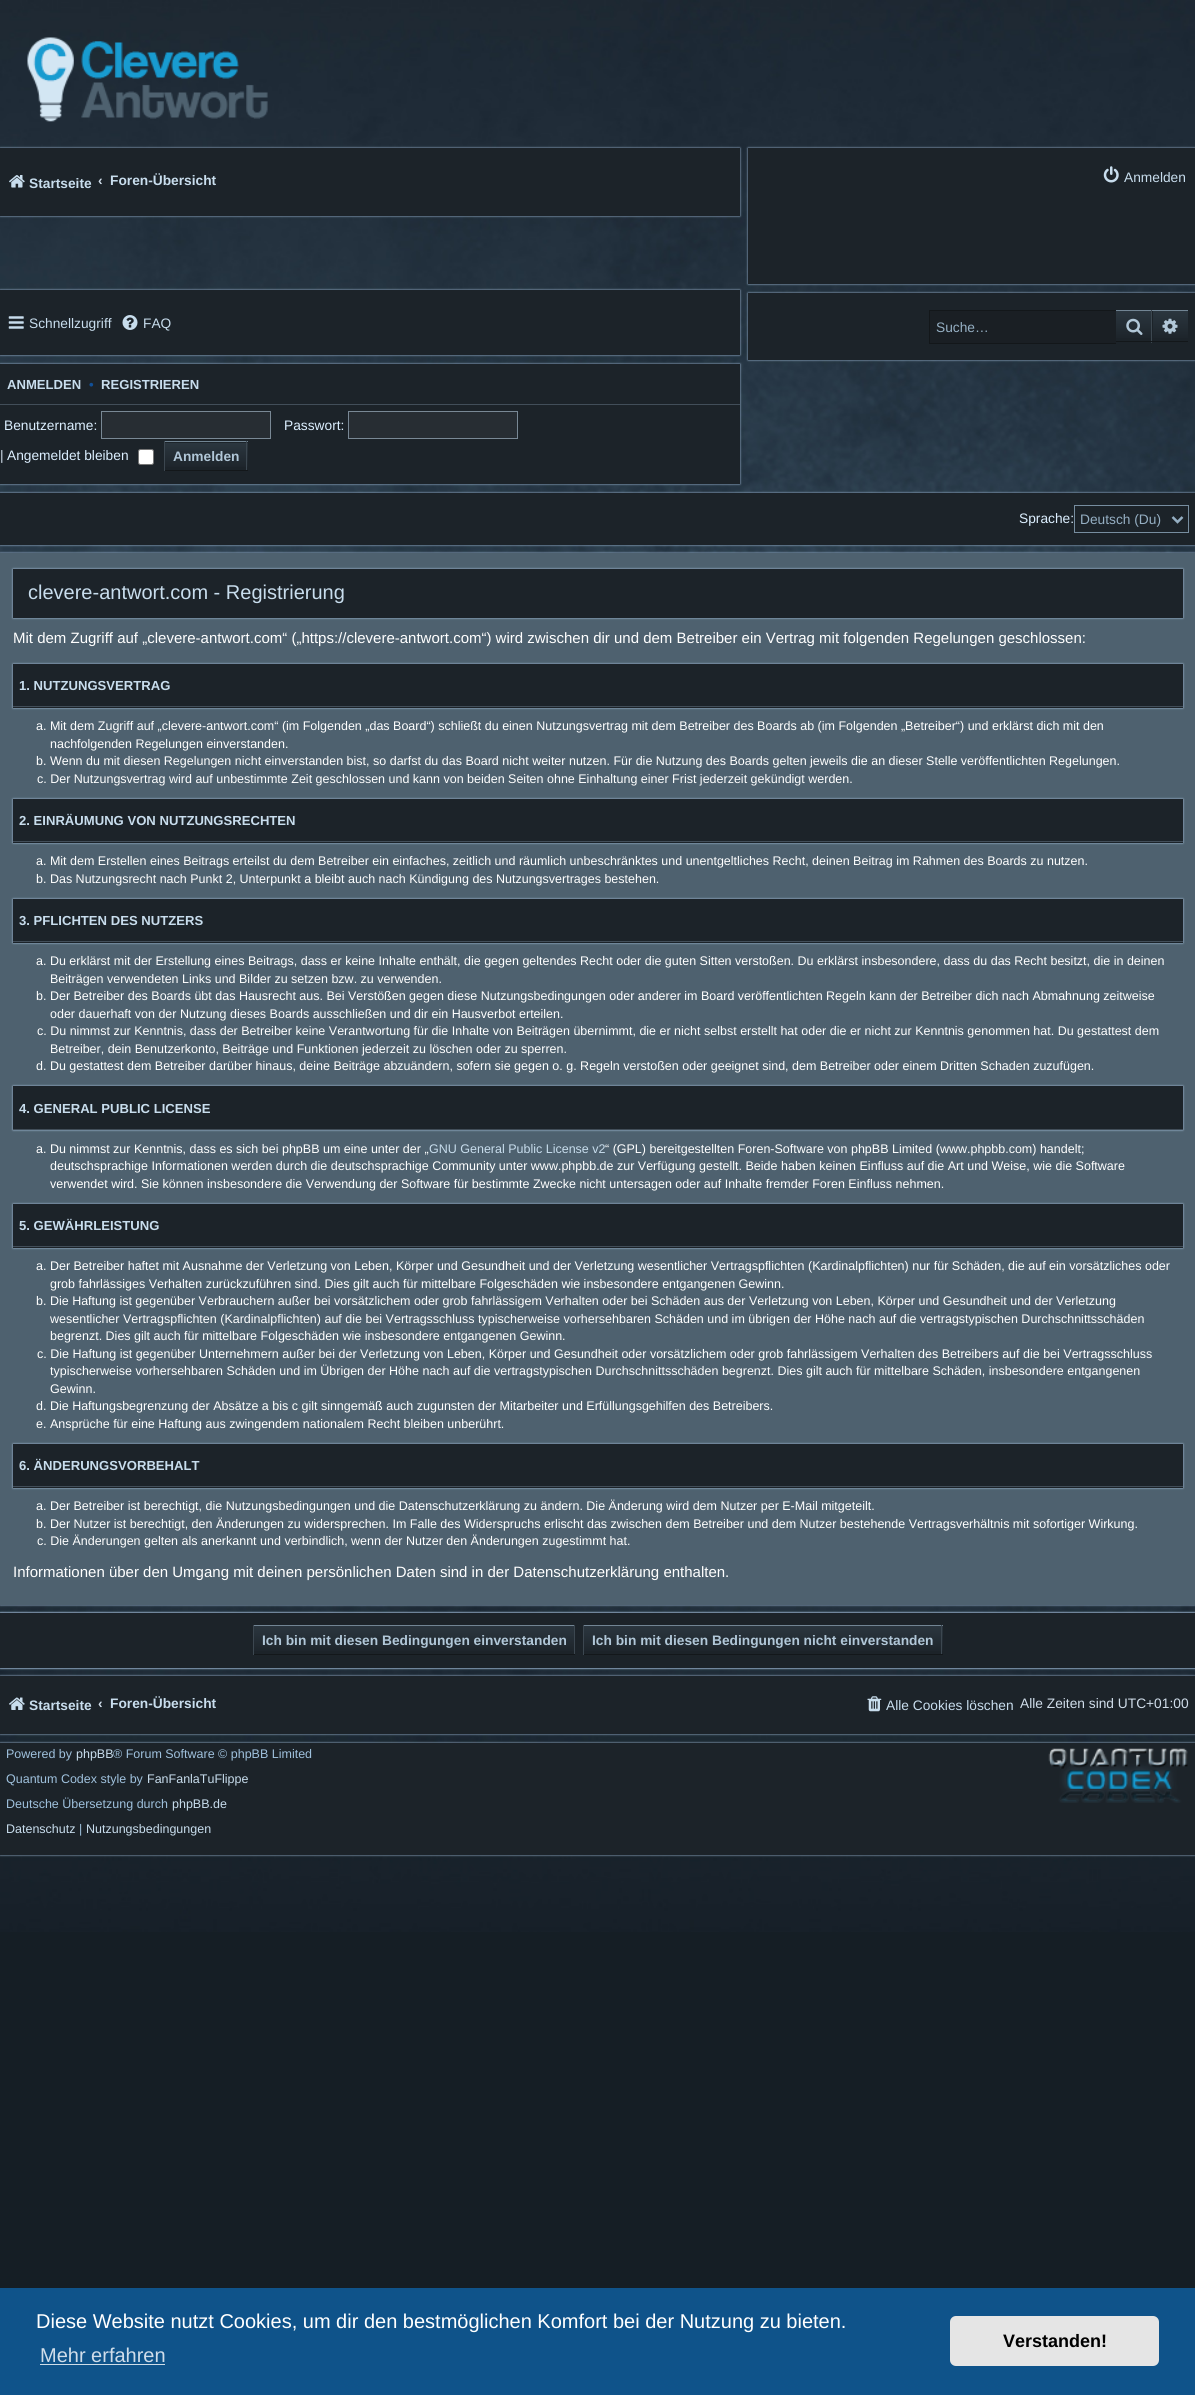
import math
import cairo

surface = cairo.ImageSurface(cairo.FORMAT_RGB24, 1195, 2395)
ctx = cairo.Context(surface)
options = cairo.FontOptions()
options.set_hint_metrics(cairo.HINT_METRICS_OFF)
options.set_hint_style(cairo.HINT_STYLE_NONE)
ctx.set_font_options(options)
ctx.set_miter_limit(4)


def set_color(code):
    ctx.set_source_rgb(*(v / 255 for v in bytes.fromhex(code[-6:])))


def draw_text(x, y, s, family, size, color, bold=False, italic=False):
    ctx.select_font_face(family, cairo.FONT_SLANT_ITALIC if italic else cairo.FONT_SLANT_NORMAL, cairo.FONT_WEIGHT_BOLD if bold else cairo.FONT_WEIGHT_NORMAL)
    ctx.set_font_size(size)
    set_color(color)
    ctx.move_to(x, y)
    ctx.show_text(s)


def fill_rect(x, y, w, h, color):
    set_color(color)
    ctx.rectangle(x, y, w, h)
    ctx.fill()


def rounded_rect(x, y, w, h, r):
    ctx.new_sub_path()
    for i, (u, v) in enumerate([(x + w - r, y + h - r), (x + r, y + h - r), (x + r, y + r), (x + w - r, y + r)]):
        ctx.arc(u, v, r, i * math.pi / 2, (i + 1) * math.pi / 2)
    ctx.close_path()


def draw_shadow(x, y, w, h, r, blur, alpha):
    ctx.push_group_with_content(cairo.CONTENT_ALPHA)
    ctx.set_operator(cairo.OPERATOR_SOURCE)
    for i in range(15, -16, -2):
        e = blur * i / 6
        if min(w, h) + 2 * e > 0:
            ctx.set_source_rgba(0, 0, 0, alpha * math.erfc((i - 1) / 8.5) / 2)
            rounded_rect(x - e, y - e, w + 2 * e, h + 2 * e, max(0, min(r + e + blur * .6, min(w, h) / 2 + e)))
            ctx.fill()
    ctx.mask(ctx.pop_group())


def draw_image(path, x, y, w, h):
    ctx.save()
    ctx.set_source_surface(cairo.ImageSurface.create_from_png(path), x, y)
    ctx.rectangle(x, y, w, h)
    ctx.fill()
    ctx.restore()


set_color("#151e25")
ctx.paint()
draw_image("assets/img1.png", 0, 1884, 1195, 48)
draw_image("assets/img2.png", 0, 0, 1195, 1884)
draw_image("assets/img3.png", 27, 37, 241, 85)
set_color("#afcbe7")
draw_shadow(0, 148, 740, 68, 0, 1, 1)
fill_rect(0, 148, 740, 68, "#1c2329")
draw_image("assets/img4.png", 9, 175, 16, 13)
draw_text(29, 188, "Startseite", "Liberation Sans", 13.75, "#c8dded", bold=True)
draw_text(98, 185, "‹", "Liberation Sans", 13.75, "#d0ddea", bold=True)
draw_text(110, 185, "Foren-Übersicht", "Liberation Sans", 13.75, "#c8dded", bold=True)
set_color("#afcbe7")
draw_shadow(748, 148, 447, 136, 0, 1, 1)
fill_rect(748, 148, 447, 136, "#1c2329")
draw_image("assets/img5.png", 1103, 166, 16, 17)
draw_text(1124, 182, "Anmelden", "Liberation Sans", 13.75, "#c8dded")
set_color("#afcbe7")
draw_shadow(0, 290, 740, 65, 0, 1, 1)
fill_rect(0, 290, 740, 65, "#1c2329")
draw_image("assets/img6.png", 8, 316, 16, 13)
draw_text(29, 328, "Schnellzugriff", "Liberation Sans", 13.75, "#c8dded")
draw_image("assets/img7.png", 122, 315, 16, 15)
draw_text(143, 328, "FAQ", "Liberation Sans", 13.75, "#c8dded")
set_color("#afcbe7")
draw_shadow(748, 293, 447, 67, 0, 1, 1)
fill_rect(748, 293, 447, 67, "#1c2329")
gradient = cairo.LinearGradient(1134, 311, 1134, 341)
gradient.add_color_stop_rgba(0, 0.169, 0.212, 0.247, 1)
gradient.add_color_stop_rgba(1, 0.11, 0.137, 0.161, 1)
ctx.set_source(gradient)
ctx.rectangle(1116, 311, 35, 27)
ctx.fill()
fill_rect(1116, 310, 72, 1, "#728594")
fill_rect(1151, 310, 1, 33, "#3c4750")
fill_rect(1116, 341, 72, 1, "#13171a")
draw_image("assets/img8.png", 1126, 318, 17, 17)
fill_rect(930, 311, 186, 32, "#1a1f24")
fill_rect(929, 310, 187, 1, "#13171a")
fill_rect(929, 343, 187, 1, "#13171a")
fill_rect(929, 310, 1, 34, "#13171a")
draw_text(936, 332, "Suche…", "Liberation Sans", 13.75, "#95afc3")
gradient = cairo.LinearGradient(1170, 311, 1170, 341)
gradient.add_color_stop_rgba(0, 0.169, 0.212, 0.247, 1)
gradient.add_color_stop_rgba(1, 0.11, 0.137, 0.161, 1)
ctx.set_source(gradient)
ctx.rectangle(1153, 311, 35, 27)
ctx.fill()
draw_image("assets/img9.png", 1162, 318, 16, 16)
set_color("#afcbe7")
draw_shadow(0, 364, 740, 120, 0, 1, 1)
fill_rect(0, 364, 740, 120, "#1c2329")
fill_rect(0, 404, 740, 1, "#424e59")
draw_text(7, 389, "ANMELDEN", "Liberation Sans", 13.1, "#c8dded", bold=True)
draw_text(89, 389, "•", "Liberation Sans", 13.1, "#115098", bold=True)
draw_text(101, 389, "REGISTRIEREN", "Liberation Sans", 13.1, "#c8dded", bold=True)
draw_text(4, 430, "Benutzername:", "Liberation Sans", 13.75, "#dcefff")
set_color("#272d33")
ctx.rectangle(101.5, 411.5, 169, 27)
ctx.fill_preserve()
set_color("#798895")
ctx.set_line_width(1)
ctx.stroke()
draw_text(284, 430, "Passwort:", "Liberation Sans", 13.75, "#dcefff")
set_color("#272d33")
ctx.rectangle(348.5, 411.5, 169, 27)
ctx.fill_preserve()
set_color("#798895")
ctx.stroke()
draw_text(0, 460, "|", "Liberation Sans", 13.75, "#d0ddea")
draw_text(7, 460, "Angemeldet bleiben", "Liberation Sans", 13.75, "#dcefff")
set_color("#ffffff")
rounded_rect(138.5, 449.5, 15, 15, 2)
ctx.fill_preserve()
set_color("#767676")
ctx.stroke()
gradient = cairo.LinearGradient(206, 443, 206, 470)
gradient.add_color_stop_rgba(0, 0.169, 0.212, 0.247, 1)
gradient.add_color_stop_rgba(1, 0.11, 0.137, 0.161, 1)
ctx.set_source(gradient)
ctx.rectangle(165, 443, 83, 24)
ctx.fill()
fill_rect(164, 441, 84, 1, "#728594")
fill_rect(246, 441, 1, 30, "#3c4750")
fill_rect(164, 470, 84, 1, "#13171a")
fill_rect(164, 441, 1, 30, "#3c4750")
draw_text(173, 461, "Anmelden", "Liberation Sans", 13.75, "#b1c7d8", bold=True)
set_color("#afcbe7")
draw_shadow(0, 493, 1195, 52, 0, 1, 1)
fill_rect(0, 493, 1195, 52, "#1c2329")
draw_text(1019, 523, "Sprache:", "Liberation Sans", 13.75, "#dcefff")
ctx.rectangle(1074.5, 505.5, 114, 27)
set_color("#778d9f")
ctx.stroke()
ctx.new_path()
ctx.move_to(1172.5, 517)
ctx.line_to(1177.5, 522)
ctx.line_to(1182.5, 517)
set_color("#95afc3")
ctx.set_line_width(2.5)
ctx.stroke()
draw_text(1080, 524, "Deutsch (Du)", "Liberation Sans", 13.75, "#95afc3")
set_color("#afcbe7")
draw_shadow(0, 553, 1195, 1052, 0, 1, 1)
fill_rect(0, 553, 1195, 1052, "#4e616f")
set_color("#afcbe7")
draw_shadow(13, 569, 1170, 49, 0, 1, 1)
fill_rect(13, 569, 1170, 49, "#1c2329")
draw_text(28, 599, "clevere-antwort.com - Registrierung", "Liberation Sans", 20, "#c8dded")
draw_text(13, 643, "Mit dem Zugriff auf „clevere-antwort.com“ („https://clevere-antwort.com“) wird zwischen dir und dem Betreiber ein Vertrag mit folgenden Regelungen geschlossen:", "Liberation Sans", 15, "#ffffff")
set_color("#afcbe7")
draw_shadow(13, 664, 1170, 44, 0, 1, 1)
fill_rect(13, 664, 1170, 44, "#1c2329")
fill_rect(13, 706, 1170, 1, "#424e59")
draw_text(19, 690, "1. NUTZUNGSVERTRAG", "Liberation Sans", 13.1, "#c8dded", bold=True)
draw_text(36, 730, "a. Mit dem Zugriff auf „clevere-antwort.com“ (im Folgenden „das Board“) schließt du einen Nutzungsvertrag mit dem Betreiber des Boards ab (im Folgenden „Betreiber“) und erklärst dich mit den", "Liberation Sans", 12.5, "#ffffff")
draw_text(50, 748, "nachfolgenden Regelungen einverstanden.", "Liberation Sans", 12.5, "#ffffff")
draw_text(36, 765, "b. Wenn du mit diesen Regelungen nicht einverstanden bist, so darfst du das Board nicht weiter nutzen. Für die Nutzung des Boards gelten jeweils die an dieser Stelle veröffentlichten Regelungen.", "Liberation Sans", 12.5, "#ffffff")
draw_text(37, 783, "c. Der Nutzungsvertrag wird auf unbestimmte Zeit geschlossen und kann von beiden Seiten ohne Einhaltung einer Frist jederzeit gekündigt werden.", "Liberation Sans", 12.5, "#ffffff")
set_color("#afcbe7")
draw_shadow(13, 799, 1170, 44, 0, 1, 1)
fill_rect(13, 799, 1170, 44, "#1c2329")
fill_rect(13, 841, 1170, 1, "#424e59")
draw_text(19, 825, "2. EINRÄUMUNG VON NUTZUNGSRECHTEN", "Liberation Sans", 13.1, "#c8dded", bold=True)
draw_text(36, 865, "a. Mit dem Erstellen eines Beitrags erteilst du dem Betreiber ein einfaches, zeitlich und räumlich unbeschränktes und unentgeltliches Recht, deinen Beitrag im Rahmen des Boards zu nutzen.", "Liberation Sans", 12.5, "#ffffff")
draw_text(36, 883, "b. Das Nutzungsrecht nach Punkt 2, Unterpunkt a bleibt auch nach Kündigung des Nutzungsvertrages bestehen.", "Liberation Sans", 12.5, "#ffffff")
set_color("#afcbe7")
draw_shadow(13, 899, 1170, 44, 0, 1, 1)
fill_rect(13, 899, 1170, 44, "#1c2329")
fill_rect(13, 941, 1170, 1, "#424e59")
draw_text(19, 925, "3. PFLICHTEN DES NUTZERS", "Liberation Sans", 13.1, "#c8dded", bold=True)
draw_text(36, 965, "a. Du erklärst mit der Erstellung eines Beitrags, dass er keine Inhalte enthält, die gegen geltendes Recht oder die guten Sitten verstoßen. Du erklärst insbesondere, dass du das Recht besitzt, die in deinen", "Liberation Sans", 12.5, "#ffffff")
draw_text(50, 983, "Beiträgen verwendeten Links und Bilder zu setzen bzw. zu verwenden.", "Liberation Sans", 12.5, "#ffffff")
draw_text(36, 1000, "b. Der Betreiber des Boards übt das Hausrecht aus. Bei Verstößen gegen diese Nutzungsbedingungen oder anderer im Board veröffentlichten Regeln kann der Betreiber dich nach Abmahnung zeitweise", "Liberation Sans", 12.5, "#ffffff")
draw_text(50, 1018, "oder dauerhaft von der Nutzung dieses Boards ausschließen und dir ein Hausverbot erteilen.", "Liberation Sans", 12.5, "#ffffff")
draw_text(37, 1035, "c. Du nimmst zur Kenntnis, dass der Betreiber keine Verantwortung für die Inhalte von Beiträgen übernimmt, die er nicht selbst erstellt hat oder die er nicht zur Kenntnis genommen hat. Du gestattest dem", "Liberation Sans", 12.5, "#ffffff")
draw_text(50, 1053, "Betreiber, dein Benutzerkonto, Beiträge und Funktionen jederzeit zu löschen oder zu sperren.", "Liberation Sans", 12.5, "#ffffff")
draw_text(36, 1070, "d. Du gestattest dem Betreiber darüber hinaus, deine Beiträge abzuändern, sofern sie gegen o. g. Regeln verstoßen oder geeignet sind, dem Betreiber oder einem Dritten Schaden zuzufügen.", "Liberation Sans", 12.5, "#ffffff")
set_color("#afcbe7")
draw_shadow(13, 1086, 1170, 44, 0, 1, 1)
fill_rect(13, 1086, 1170, 43, "#1c2329")
fill_rect(13, 1129, 1170, 1, "#424e59")
draw_text(19, 1113, "4. GENERAL PUBLIC LICENSE", "Liberation Sans", 13.1, "#c8dded", bold=True)
draw_text(36, 1153, "a. Du nimmst zur Kenntnis, dass es sich bei phpBB um eine unter der „", "Liberation Sans", 12.5, "#ffffff")
draw_text(429, 1153, "GNU General Public License v2", "Liberation Sans", 12.5, "#c8dded")
draw_text(605, 1153, "“ (GPL) bereitgestellten Foren-Software von phpBB Limited (www.phpbb.com) handelt;", "Liberation Sans", 12.5, "#ffffff")
draw_text(50, 1170, "deutschsprachige Informationen werden durch die deutschsprachige Community unter www.phpbb.de zur Verfügung gestellt. Beide haben keinen Einfluss auf die Art und Weise, wie die Software", "Liberation Sans", 12.5, "#ffffff")
draw_text(50, 1188, "verwendet wird. Sie können insbesondere die Verwendung der Software für bestimmte Zwecke nicht untersagen oder auf Inhalte fremder Foren Einfluss nehmen.", "Liberation Sans", 12.5, "#ffffff")
set_color("#afcbe7")
draw_shadow(13, 1204, 1170, 44, 0, 1, 1)
fill_rect(13, 1204, 1170, 44, "#1c2329")
fill_rect(13, 1246, 1170, 1, "#424e59")
draw_text(19, 1230, "5. GEWÄHRLEISTUNG", "Liberation Sans", 13.1, "#c8dded", bold=True)
draw_text(36, 1270, "a. Der Betreiber haftet mit Ausnahme der Verletzung von Leben, Körper und Gesundheit und der Verletzung wesentlicher Vertragspflichten (Kardinalpflichten) nur für Schäden, die auf ein vorsätzliches oder", "Liberation Sans", 12.5, "#ffffff")
draw_text(50, 1288, "grob fahrlässiges Verhalten zurückzuführen sind. Dies gilt auch für mittelbare Folgeschäden wie insbesondere entgangenen Gewinn.", "Liberation Sans", 12.5, "#ffffff")
draw_text(36, 1305, "b. Die Haftung ist gegenüber Verbrauchern außer bei vorsätzlichem oder grob fahrlässigem Verhalten oder bei Schäden aus der Verletzung von Leben, Körper und Gesundheit und der Verletzung", "Liberation Sans", 12.5, "#ffffff")
draw_text(50, 1323, "wesentlicher Vertragspflichten (Kardinalpflichten) auf die bei Vertragsschluss typischerweise vorhersehbaren Schäden und im übrigen der Höhe nach auf die vertragstypischen Durchschnittsschäden", "Liberation Sans", 12.5, "#ffffff")
draw_text(50, 1340, "begrenzt. Dies gilt auch für mittelbare Folgeschäden wie insbesondere entgangenen Gewinn.", "Liberation Sans", 12.5, "#ffffff")
draw_text(37, 1358, "c. Die Haftung ist gegenüber Unternehmern außer bei der Verletzung von Leben, Körper und Gesundheit oder vorsätzlichem oder grob fahrlässigem Verhalten des Betreibers auf die bei Vertragsschluss", "Liberation Sans", 12.5, "#ffffff")
draw_text(50, 1375, "typischerweise vorhersehbaren Schäden und im Übrigen der Höhe nach auf die vertragstypischen Durchschnittsschäden begrenzt. Dies gilt auch für mittelbare Schäden, insbesondere entgangenen", "Liberation Sans", 12.5, "#ffffff")
draw_text(50, 1393, "Gewinn.", "Liberation Sans", 12.5, "#ffffff")
draw_text(36, 1410, "d. Die Haftungsbegrenzung der Absätze a bis c gilt sinngemäß auch zugunsten der Mitarbeiter und Erfüllungsgehilfen des Betreibers.", "Liberation Sans", 12.5, "#ffffff")
draw_text(36, 1428, "e. Ansprüche für eine Haftung aus zwingendem nationalem Recht bleiben unberührt.", "Liberation Sans", 12.5, "#ffffff")
set_color("#afcbe7")
draw_shadow(13, 1444, 1170, 44, 0, 1, 1)
fill_rect(13, 1444, 1170, 44, "#1c2329")
fill_rect(13, 1486, 1170, 1, "#424e59")
draw_text(19, 1470, "6. ÄNDERUNGSVORBEHALT", "Liberation Sans", 13.1, "#c8dded", bold=True)
draw_text(36, 1510, "a. Der Betreiber ist berechtigt, die Nutzungsbedingungen und die Datenschutzerklärung zu ändern. Die Änderung wird dem Nutzer per E-Mail mitgeteilt.", "Liberation Sans", 12.5, "#ffffff")
draw_text(36, 1528, "b. Der Nutzer ist berechtigt, den Änderungen zu widersprechen. Im Falle des Widerspruchs erlischt das zwischen dem Betreiber und dem Nutzer bestehende Vertragsverhältnis mit sofortiger Wirkung.", "Liberation Sans", 12.5, "#ffffff")
draw_text(37, 1545, "c. Die Änderungen gelten als anerkannt und verbindlich, wenn der Nutzer den Änderungen zugestimmt hat.", "Liberation Sans", 12.5, "#ffffff")
draw_text(13, 1577, "Informationen über den Umgang mit deinen persönlichen Daten sind in der Datenschutzerklärung enthalten.", "Liberation Sans", 15, "#ffffff")
set_color("#afcbe7")
draw_shadow(0, 1613, 1195, 55, 0, 1, 1)
draw_shadow(0, 1613, 1195, 55, 0, 1, 1)
fill_rect(0, 1613, 1195, 55, "#1c2329")
gradient = cairo.LinearGradient(414, 1626, 414, 1654)
gradient.add_color_stop_rgba(0, 0.169, 0.212, 0.247, 1)
gradient.add_color_stop_rgba(1, 0.11, 0.137, 0.161, 1)
ctx.set_source(gradient)
ctx.rectangle(254, 1626, 320, 25)
ctx.fill()
fill_rect(253, 1625, 322, 1, "#728594")
fill_rect(574, 1625, 1, 30, "#3c4750")
fill_rect(253, 1654, 322, 1, "#13171a")
fill_rect(253, 1625, 1, 30, "#3c4750")
draw_text(262, 1645, "Ich bin mit diesen Bedingungen einverstanden", "Liberation Sans", 13.75, "#b1c7d8", bold=True)
gradient = cairo.LinearGradient(763, 1626, 763, 1654)
gradient.add_color_stop_rgba(0, 0.169, 0.212, 0.247, 1)
gradient.add_color_stop_rgba(1, 0.11, 0.137, 0.161, 1)
ctx.set_source(gradient)
ctx.rectangle(584, 1626, 359, 25)
ctx.fill()
fill_rect(583, 1625, 360, 1, "#728594")
fill_rect(941, 1625, 1, 30, "#3c4750")
fill_rect(583, 1654, 360, 1, "#13171a")
fill_rect(583, 1625, 1, 30, "#3c4750")
draw_text(592, 1645, "Ich bin mit diesen Bedingungen nicht einverstanden", "Liberation Sans", 13.75, "#b1c7d8", bold=True)
set_color("#afcbe7")
draw_shadow(0, 1676, 1195, 58, 0, 1, 1)
fill_rect(0, 1676, 1195, 58, "#1c2329")
draw_image("assets/img10.png", 9, 1697, 16, 13)
draw_text(29, 1710, "Startseite", "Liberation Sans", 13.75, "#c8dded", bold=True)
draw_text(98, 1708, "‹", "Liberation Sans", 13.75, "#d0ddea", bold=True)
draw_text(110, 1708, "Foren-Übersicht", "Liberation Sans", 13.75, "#c8dded", bold=True)
draw_image("assets/img11.png", 867, 1696, 15, 16)
draw_text(886, 1710, "Alle Cookies löschen", "Liberation Sans", 13.75, "#c8dded")
draw_text(1020, 1708, "Alle Zeiten sind UTC+01:00", "Liberation Sans", 13.75, "#d0ddea")
set_color("#afcbe7")
draw_shadow(0, 1743, 1195, 112, 0, 1, 1)
fill_rect(0, 1743, 1195, 112, "#1c2329")
draw_text(6, 1758, "Powered by", "Liberation Sans", 12.5, "#9fc1dd")
draw_text(76, 1758, "phpBB", "Liberation Sans", 12.5, "#c8dded")
draw_text(113, 1758, "® Forum Software © phpBB Limited", "Liberation Sans", 12.5, "#9fc1dd")
draw_image("assets/img12.png", 1048, 1748, 140, 55)
draw_text(6, 1783, "Quantum Codex style by", "Liberation Sans", 12.5, "#9fc1dd")
draw_text(147, 1783, "FanFanlaTuFlippe", "Liberation Sans", 12.5, "#c8dded")
draw_text(6, 1808, "Deutsche Übersetzung durch", "Liberation Sans", 12.5, "#9fc1dd")
draw_text(172, 1808, "phpBB.de", "Liberation Sans", 12.5, "#c8dded")
draw_text(6, 1833, "Datenschutz", "Liberation Sans", 12.5, "#c8dded")
draw_text(79, 1833, "|", "Liberation Sans", 12.5, "#9fc1dd")
draw_text(86, 1833, "Nutzungsbedingungen", "Liberation Sans", 12.5, "#c8dded")
fill_rect(0, 2288, 1195, 107, "#0f538a")
draw_text(36, 2328, "Diese Website nutzt Cookies, um dir den bestmöglichen Komfort bei der Nutzung zu bieten.", "Liberation Sans", 20, "#ffffff")
draw_text(40, 2362, "Mehr erfahren", "Liberation Sans", 20, "#d0ddea")
fill_rect(40, 2364, 125, 1, "#cfdde8")
set_color("#e5e5e5")
rounded_rect(950, 2316, 209, 50, 6)
ctx.fill()
draw_text(1003, 2347, "Verstanden!", "Liberation Sans", 18, "#000000", bold=True)
surface.write_to_png("output.png")
